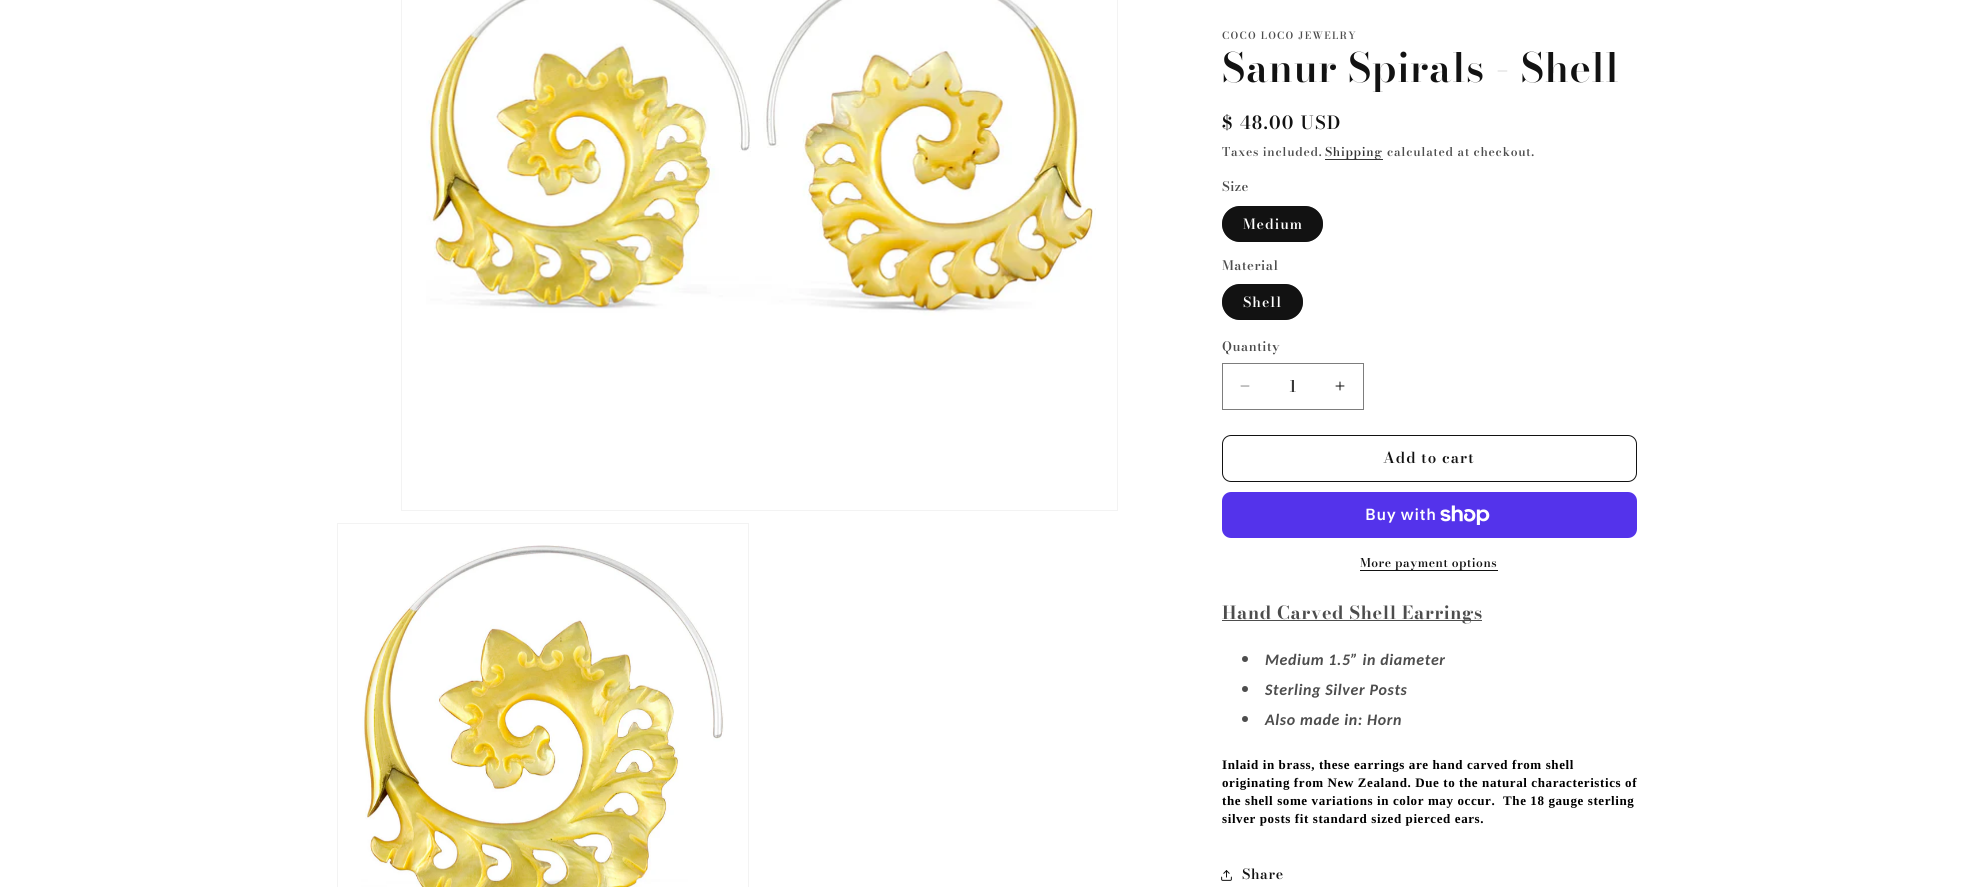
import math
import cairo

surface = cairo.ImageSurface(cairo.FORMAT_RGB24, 1973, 887)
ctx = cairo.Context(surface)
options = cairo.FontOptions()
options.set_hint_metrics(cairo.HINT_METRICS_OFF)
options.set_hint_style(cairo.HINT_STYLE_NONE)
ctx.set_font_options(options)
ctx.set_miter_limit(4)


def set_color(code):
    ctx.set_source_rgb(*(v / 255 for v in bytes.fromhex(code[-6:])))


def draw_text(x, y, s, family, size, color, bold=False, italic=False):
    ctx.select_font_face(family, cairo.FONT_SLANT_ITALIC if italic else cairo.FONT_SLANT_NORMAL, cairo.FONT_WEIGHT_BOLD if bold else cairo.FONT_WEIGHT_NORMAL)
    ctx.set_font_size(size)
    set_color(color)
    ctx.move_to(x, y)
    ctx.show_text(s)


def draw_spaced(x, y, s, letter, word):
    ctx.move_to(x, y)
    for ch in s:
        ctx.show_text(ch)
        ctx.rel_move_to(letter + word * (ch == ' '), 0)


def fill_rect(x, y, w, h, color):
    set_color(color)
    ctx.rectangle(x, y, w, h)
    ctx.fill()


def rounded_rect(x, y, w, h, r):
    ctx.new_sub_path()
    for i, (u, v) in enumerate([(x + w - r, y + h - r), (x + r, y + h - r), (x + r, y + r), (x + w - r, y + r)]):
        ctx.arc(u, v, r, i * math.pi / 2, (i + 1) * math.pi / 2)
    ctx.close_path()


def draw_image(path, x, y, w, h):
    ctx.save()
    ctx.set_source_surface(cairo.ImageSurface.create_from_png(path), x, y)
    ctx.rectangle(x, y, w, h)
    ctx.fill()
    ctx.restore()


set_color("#ffffff")
ctx.paint()
ctx.rectangle(401.5, -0.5, 716, 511)
set_color("#f3f3f3")
ctx.set_line_width(1)
ctx.stroke()
draw_image("assets/img1.png", 426, 0, 670, 316)
ctx.rectangle(337.5, 523.5, 411, 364)
ctx.stroke()
draw_image("assets/img2.png", 361, 545, 363, 342)
ctx.select_font_face("Bodoni Moda SemiBold")
ctx.set_font_size(10)
set_color("#4d4d4d")
draw_spaced(1222, 39, "COCO LOCO JEWELRY", 1.25, 0)
ctx.select_font_face("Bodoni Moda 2 SemiBold")
ctx.set_font_size(40)
set_color("#121212")
draw_spaced(1222, 82, "Sanur Spirals - Shell", 0.6, 0)
ctx.select_font_face("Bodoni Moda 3 SemiBold")
ctx.set_font_size(18)
draw_spaced(1222, 129, "$ 48.00 USD", 1.25, 0)
ctx.set_font_size(12)
set_color("#4d4d4d")
draw_spaced(1222, 156, "Taxes included.", 0.7, 0)
fill_rect(1325, 159, 58, 1, "#363636")
set_color("#353535")
draw_spaced(1325, 156, "Shipping", 0.7, 0)
set_color("#4d4d4d")
draw_spaced(1387, 156, "calculated at checkout.", 0.7, 0)
ctx.set_font_size(13)
draw_spaced(1222, 191, "Size", 0.5, 0)
set_color("#121212")
rounded_rect(1222, 206, 101, 36, 18)
ctx.fill()
rounded_rect(1222.5, 206.5, 100, 35, 17.5)
ctx.set_source_rgba(0.071, 0.071, 0.071, 0.55)
ctx.stroke()
ctx.set_font_size(14)
set_color("#ffffff")
draw_spaced(1243, 229, "Medium", 1, 0)
ctx.set_font_size(13)
set_color("#4d4d4d")
draw_spaced(1222, 270, "Material", 0.5, 0)
set_color("#121212")
rounded_rect(1222, 284, 81, 36, 18)
ctx.fill()
rounded_rect(1222.5, 284.5, 80, 35, 17.5)
ctx.set_source_rgba(0.071, 0.071, 0.071, 0.55)
ctx.stroke()
ctx.set_font_size(14)
set_color("#ffffff")
draw_spaced(1243, 307, "Shell", 1, 0)
ctx.set_font_size(13)
set_color("#4d4d4d")
draw_spaced(1222, 351, "Quantity", 0.5, 0)
draw_image("assets/img3.png", 1240, 385, 10, 2)
draw_image("assets/img4.png", 1335, 381, 10, 10)
ctx.rectangle(1222.5, 363.5, 141, 46)
set_color("#7d7d7d")
ctx.stroke()
draw_text(1289, 392, "1", "Bodoni Moda 3 SemiBold", 16, "#353535")
rounded_rect(1222.5, 435.5, 414, 46, 8.5)
set_color("#121212")
ctx.stroke()
ctx.set_font_size(15)
draw_spaced(1383, 463, "Add to cart", 1, 0)
set_color("#5433eb")
rounded_rect(1222, 492, 415, 46, 9)
ctx.fill()
ctx.select_font_face("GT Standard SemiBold")
ctx.set_font_size(16)
set_color("#ffffff")
draw_spaced(1365, 520, "Buy with", 0.6, 0)
draw_image("assets/img5.png", 1440, 505, 50, 20)
fill_rect(1360, 570, 138, 1, "#121212")
ctx.select_font_face("Bodoni Moda 3 SemiBold")
ctx.set_font_size(12)
draw_spaced(1360, 567, "More payment options", 0.5, 0)
fill_rect(1222, 620, 260, 1, "#4d4d4d")
ctx.select_font_face("Bodoni Moda", cairo.FONT_SLANT_NORMAL, cairo.FONT_WEIGHT_BOLD)
ctx.set_font_size(18)
draw_spaced(1222, 619, "Hand Carved Shell Earrings", 0.6, 0)
ctx.new_path()
ctx.arc(1245, 659, 3, 0, 2 * math.pi)
ctx.fill()
ctx.select_font_face("Carlito", cairo.FONT_SLANT_ITALIC, cairo.FONT_WEIGHT_BOLD)
ctx.set_font_size(16)
draw_spaced(1265, 665, "Medium 1.5” in diameter", 0.6, 0)
ctx.new_path()
ctx.arc(1245, 689, 3, 0, 2 * math.pi)
ctx.fill()
draw_spaced(1265, 695, "Sterling Silver Posts", 0.6, 0)
ctx.new_path()
ctx.arc(1245, 719, 3, 0, 2 * math.pi)
ctx.fill()
draw_spaced(1265, 725, "Also made in: Horn", 0.6, 0)
ctx.select_font_face("Liberation Serif", cairo.FONT_SLANT_NORMAL, cairo.FONT_WEIGHT_BOLD)
ctx.set_font_size(13)
set_color("#000000")
draw_spaced(1222, 769, "Inlaid in brass, these earrings are hand carved from shell", 0.6, 0)
draw_spaced(1222, 787, "originating from New Zealand. Due to the natural characteristics of", 0.6, 0)
draw_spaced(1222, 805, "the shell some variations in color may occur.  The 18 gauge sterling", 0.6, 0)
draw_spaced(1222, 823, "silver posts fit standard sized pierced ears.", 0.6, 0)
draw_image("assets/img6.png", 1221, 870, 11, 11)
ctx.select_font_face("Bodoni Moda 3 SemiBold")
ctx.set_font_size(14)
set_color("#121212")
draw_spaced(1242, 879, "Share", 0.6, 0)
surface.write_to_png("output.png")
